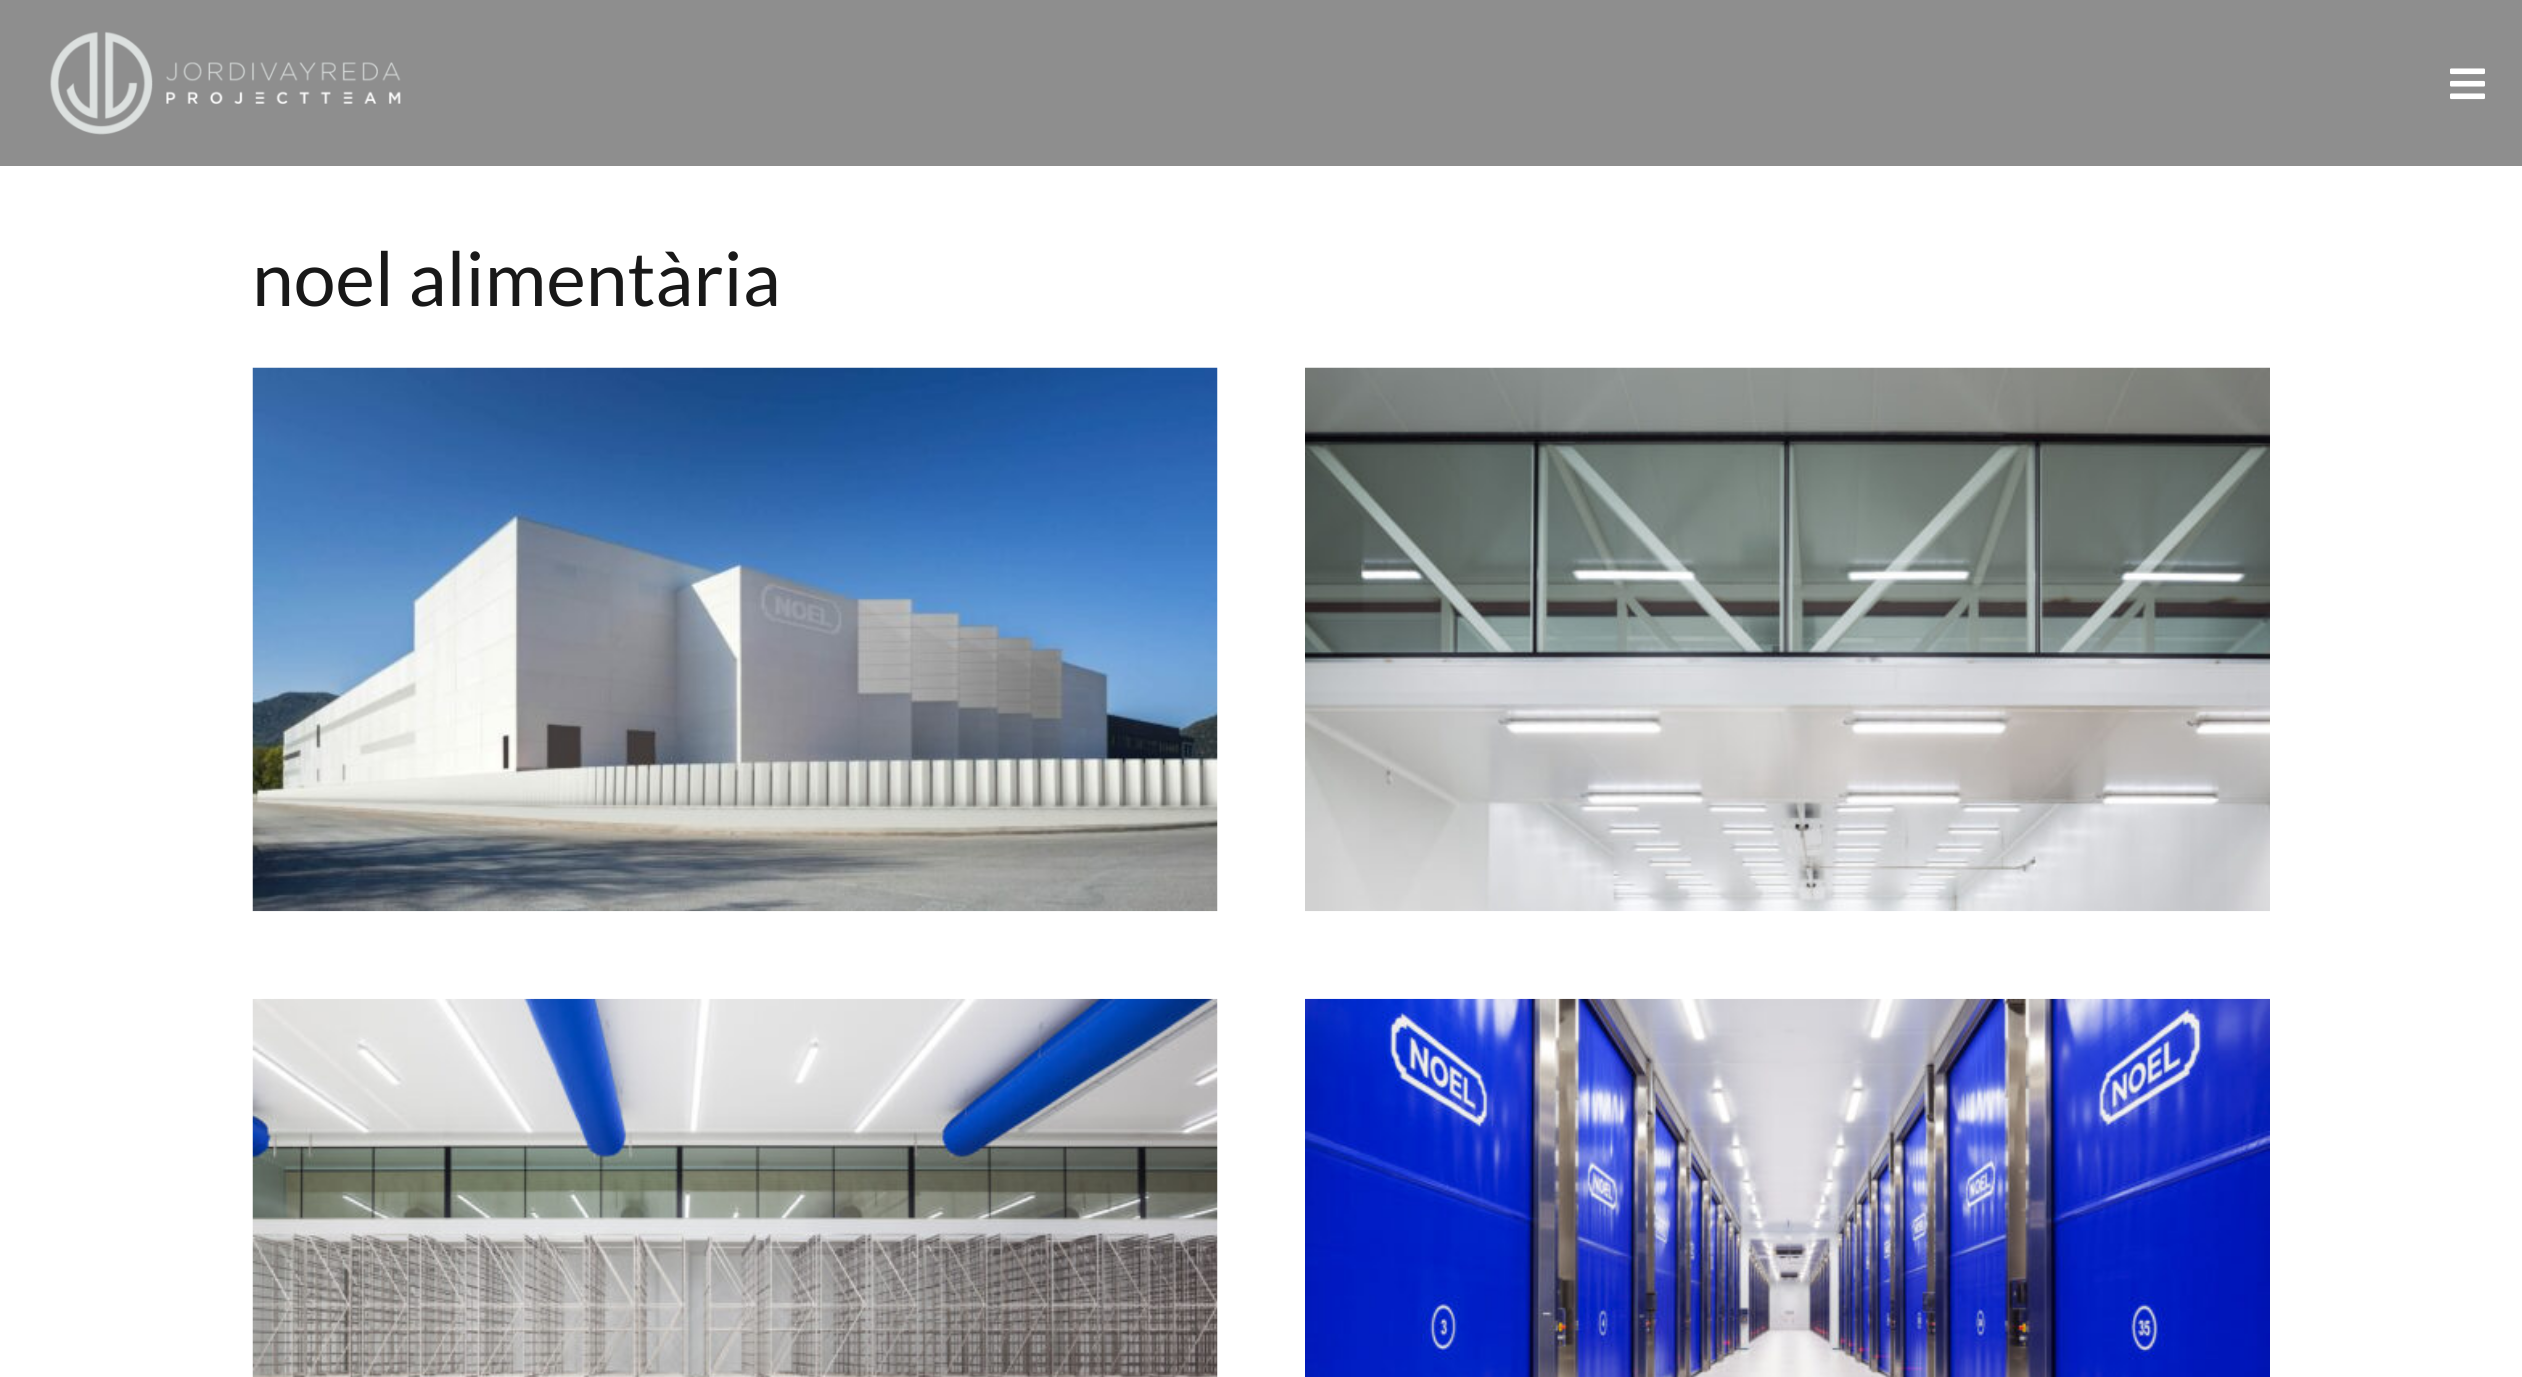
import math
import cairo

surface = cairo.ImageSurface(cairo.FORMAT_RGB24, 2522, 1377)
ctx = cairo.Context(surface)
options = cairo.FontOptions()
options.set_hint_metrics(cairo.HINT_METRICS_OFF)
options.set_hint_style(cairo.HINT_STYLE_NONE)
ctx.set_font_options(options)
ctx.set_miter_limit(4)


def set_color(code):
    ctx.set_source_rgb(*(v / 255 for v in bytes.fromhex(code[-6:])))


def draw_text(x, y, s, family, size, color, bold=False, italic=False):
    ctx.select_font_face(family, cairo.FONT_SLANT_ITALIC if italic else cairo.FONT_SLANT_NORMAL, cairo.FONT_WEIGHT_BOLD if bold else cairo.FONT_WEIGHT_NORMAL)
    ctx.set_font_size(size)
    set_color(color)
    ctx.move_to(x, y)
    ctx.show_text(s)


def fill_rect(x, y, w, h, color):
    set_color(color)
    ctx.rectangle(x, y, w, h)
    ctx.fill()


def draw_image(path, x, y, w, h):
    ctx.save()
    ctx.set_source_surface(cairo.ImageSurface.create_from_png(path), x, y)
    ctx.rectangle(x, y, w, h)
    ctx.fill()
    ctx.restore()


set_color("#ffffff")
ctx.paint()
fill_rect(0, 0, 2522, 166, "#8e8e8e")
draw_image("assets/img1.png", 50, 31, 351, 104)
draw_image("assets/img2.png", 2450, 68, 35, 32)
draw_text(252, 306, "noel alimentària", "Lato", 75, "#181818")
draw_image("assets/img3.png", 252, 367, 966, 545)
draw_image("assets/img4.png", 1305, 367, 965, 545)
draw_image("assets/img5.png", 252, 998, 966, 379)
draw_image("assets/img6.png", 1305, 998, 965, 379)
surface.write_to_png("output.png")
